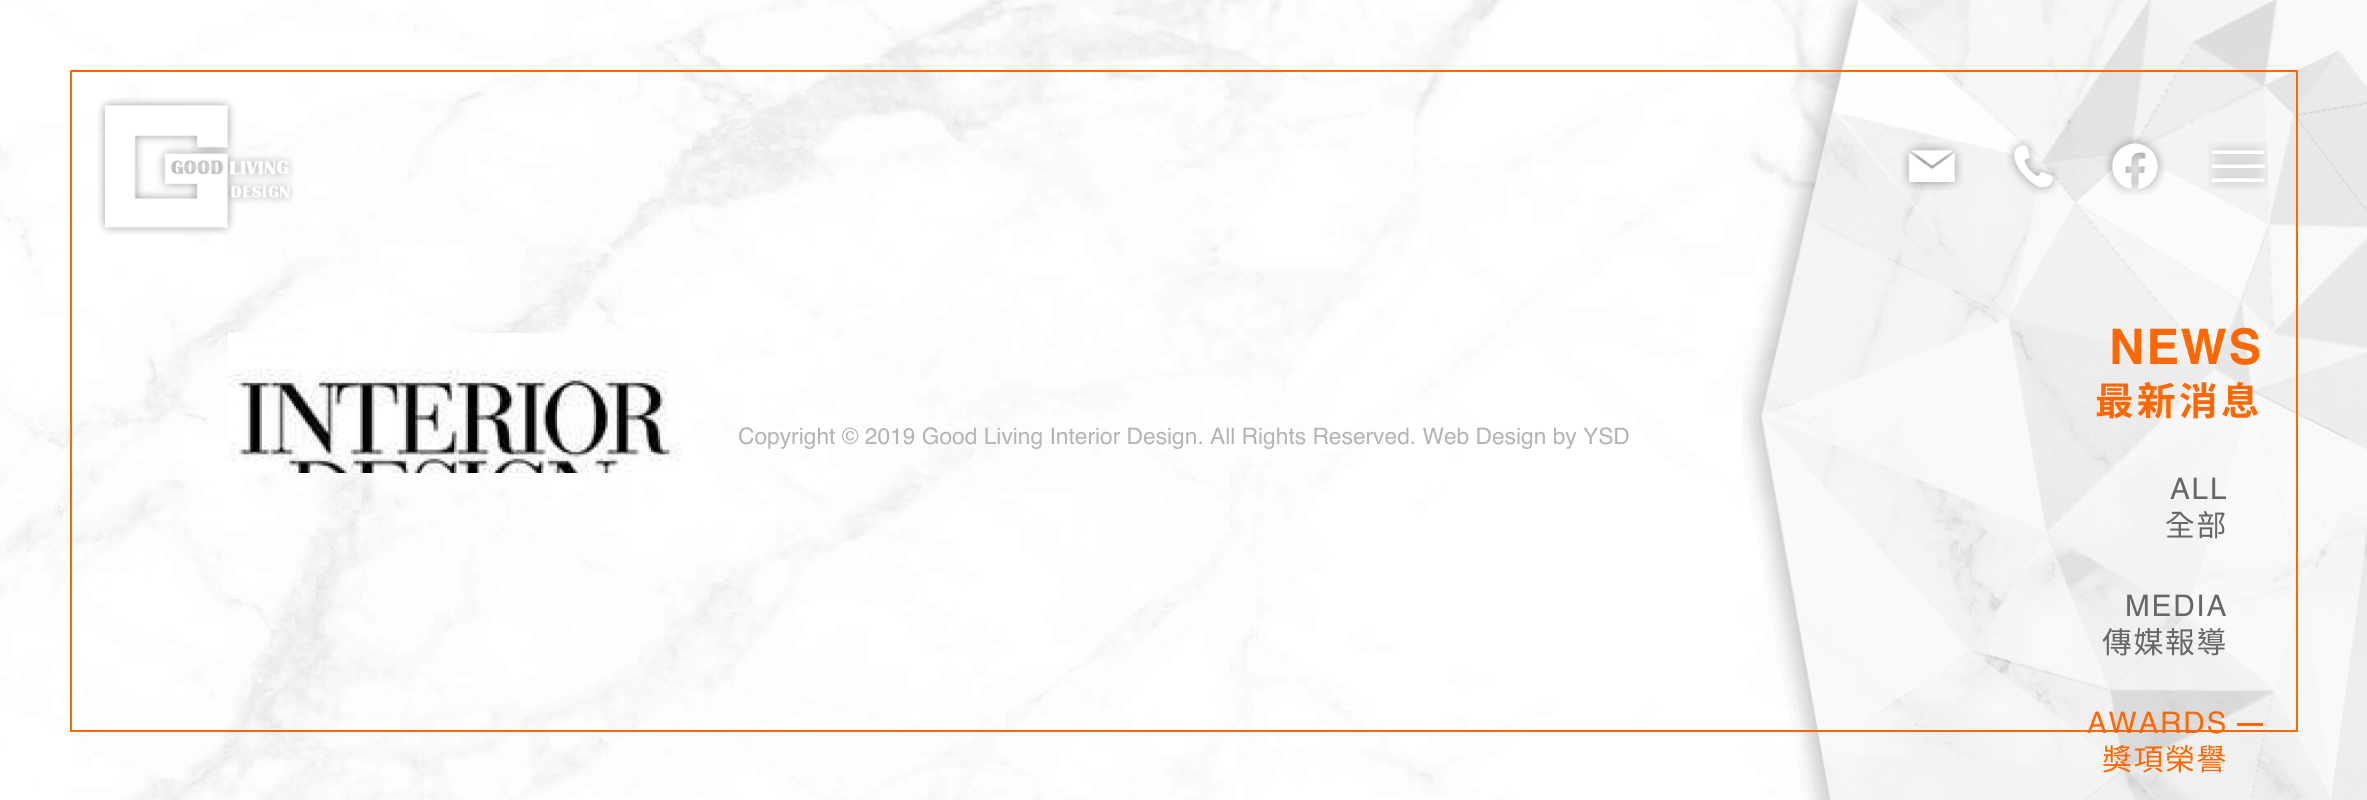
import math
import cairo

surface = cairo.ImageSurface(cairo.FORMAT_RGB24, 2367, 800)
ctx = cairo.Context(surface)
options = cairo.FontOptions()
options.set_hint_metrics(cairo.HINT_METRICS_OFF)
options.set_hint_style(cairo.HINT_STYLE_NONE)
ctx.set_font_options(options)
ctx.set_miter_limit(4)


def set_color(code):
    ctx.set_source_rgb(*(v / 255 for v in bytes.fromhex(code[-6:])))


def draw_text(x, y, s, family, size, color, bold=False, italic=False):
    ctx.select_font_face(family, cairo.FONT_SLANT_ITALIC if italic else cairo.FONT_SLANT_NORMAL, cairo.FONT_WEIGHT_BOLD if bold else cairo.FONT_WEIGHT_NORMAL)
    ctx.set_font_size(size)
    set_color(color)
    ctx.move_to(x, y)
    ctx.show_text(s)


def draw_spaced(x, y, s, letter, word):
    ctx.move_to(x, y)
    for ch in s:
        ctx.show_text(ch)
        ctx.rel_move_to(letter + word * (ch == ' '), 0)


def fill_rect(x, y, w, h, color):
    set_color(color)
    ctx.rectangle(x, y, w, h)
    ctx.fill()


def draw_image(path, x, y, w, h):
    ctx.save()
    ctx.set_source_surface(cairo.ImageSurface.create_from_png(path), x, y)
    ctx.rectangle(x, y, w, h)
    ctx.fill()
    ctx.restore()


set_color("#ffffff")
ctx.paint()
draw_image("assets/img1.png", 0, 0, 1860, 800)
draw_image("assets/img8.png", 1742, 0, 625, 800)
fill_rect(70, 70, 2228, 2, "#ff6801")
fill_rect(70, 730, 2228, 2, "#ff6801")
fill_rect(70, 70, 2, 662, "#ff6801")
draw_image("assets/img2.png", 98, 98, 196, 137)
draw_image("assets/img3.png", 1901, 142, 62, 48)
draw_image("assets/img4.png", 2007, 138, 52, 57)
draw_image("assets/img5.png", 2105, 136, 60, 59)
draw_image("assets/img6.png", 2208, 142, 60, 48)
fill_rect(2296, 70, 2, 662, "#ff6801")
draw_image("assets/img7.png", 228, 333, 453, 140)
draw_text(738, 444, "Copyright © 2019 Good Living Interior Design. All Rights Reserved. Web Design by YSD", "Helvetica", 22.75, "#b4b4b4")
ctx.select_font_face("Helvetica", cairo.FONT_SLANT_NORMAL, cairo.FONT_WEIGHT_BOLD)
ctx.set_font_size(49)
set_color("#ff6801")
draw_spaced(2109, 364, "NEWS", 1.75, 0)
ctx.select_font_face("Noto Sans HK", cairo.FONT_SLANT_NORMAL, cairo.FONT_WEIGHT_BOLD)
ctx.set_font_size(38.5)
draw_spaced(2095, 415, "最新消息", 3.5, 0)
ctx.select_font_face("Helvetica")
ctx.set_font_size(29.75)
set_color("#666666")
draw_spaced(2170, 499, "ALL", 1.75, 0)
ctx.select_font_face("Noto Sans HK")
draw_spaced(2165, 536, "全部", 1.75, 0)
ctx.select_font_face("Helvetica")
draw_spaced(2125, 616, "MEDIA", 1.75, 0)
ctx.select_font_face("Noto Sans HK")
draw_spaced(2102, 653, "傳媒報導", 1.75, 0)
fill_rect(2237, 723, 26, 3, "#ff6801")
ctx.select_font_face("Helvetica")
draw_spaced(2087, 733, "AWARDS", 1.75, 0)
ctx.select_font_face("Noto Sans HK")
draw_spaced(2102, 770, "獎項榮譽", 1.75, 0)
surface.write_to_png("output.png")
